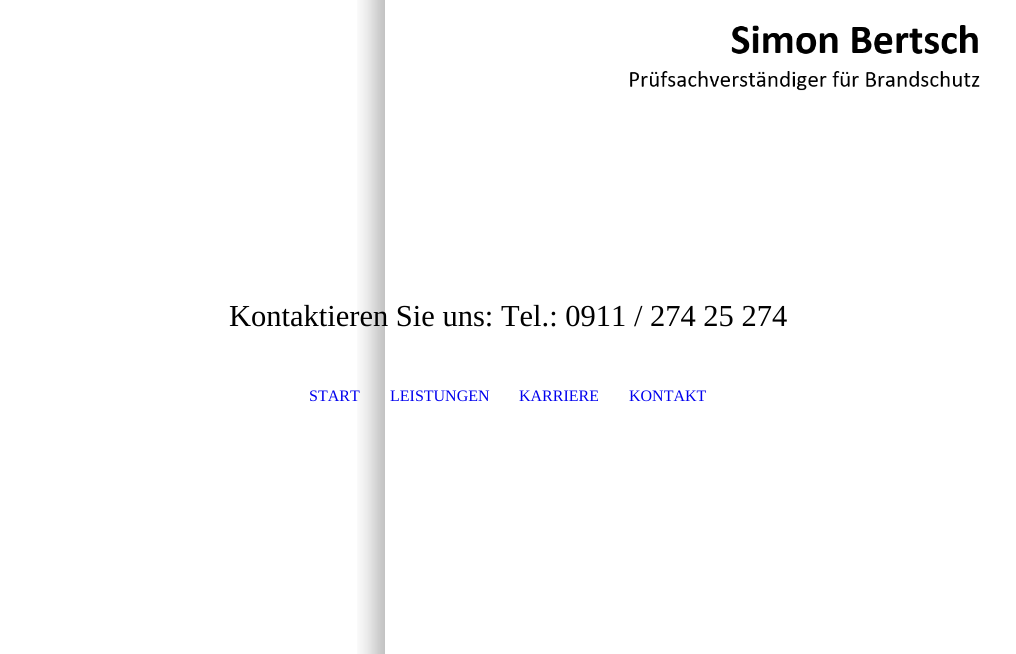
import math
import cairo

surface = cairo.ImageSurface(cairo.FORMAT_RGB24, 1016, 654)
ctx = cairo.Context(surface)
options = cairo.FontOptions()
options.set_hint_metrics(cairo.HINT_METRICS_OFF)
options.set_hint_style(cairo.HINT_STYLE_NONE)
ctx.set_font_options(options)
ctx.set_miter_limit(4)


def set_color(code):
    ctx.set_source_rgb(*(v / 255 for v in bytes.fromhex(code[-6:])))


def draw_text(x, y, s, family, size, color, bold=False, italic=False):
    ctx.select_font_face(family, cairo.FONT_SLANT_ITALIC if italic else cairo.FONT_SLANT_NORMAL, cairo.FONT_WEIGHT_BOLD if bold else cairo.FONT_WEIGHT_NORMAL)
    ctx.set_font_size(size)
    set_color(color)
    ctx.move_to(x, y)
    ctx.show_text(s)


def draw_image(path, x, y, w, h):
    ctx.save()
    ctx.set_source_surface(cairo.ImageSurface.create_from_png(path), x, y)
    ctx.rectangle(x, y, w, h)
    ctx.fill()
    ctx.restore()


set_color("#ffffff")
ctx.paint()
draw_image("assets/img1.png", 357, 0, 28, 654)
draw_image("assets/img2.png", 630, 25, 350, 66)
draw_text(229, 326, "Kontaktieren Sie uns: Tel.: 0911 / 274 25 274", "Liberation Serif", 30.5, "#000000")
draw_text(309, 401, "START", "Liberation Serif", 16, "#0000ee")
draw_text(390, 401, "LEISTUNGEN", "Liberation Serif", 16, "#0000ee")
draw_text(519, 401, "KARRIERE", "Liberation Serif", 16, "#0000ee")
draw_text(629, 401, "KONTAKT", "Liberation Serif", 16, "#0000ee")
surface.write_to_png("output.png")
